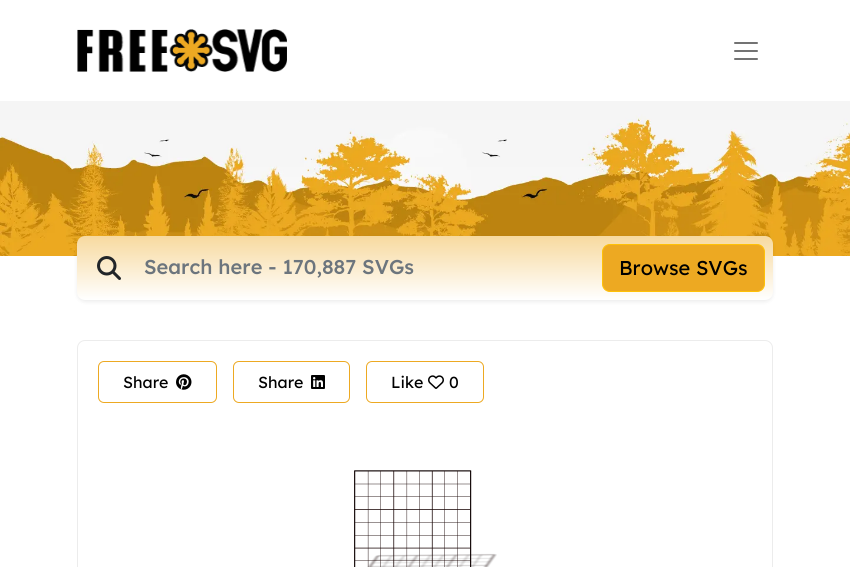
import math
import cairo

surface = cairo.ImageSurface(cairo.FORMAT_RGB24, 850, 567)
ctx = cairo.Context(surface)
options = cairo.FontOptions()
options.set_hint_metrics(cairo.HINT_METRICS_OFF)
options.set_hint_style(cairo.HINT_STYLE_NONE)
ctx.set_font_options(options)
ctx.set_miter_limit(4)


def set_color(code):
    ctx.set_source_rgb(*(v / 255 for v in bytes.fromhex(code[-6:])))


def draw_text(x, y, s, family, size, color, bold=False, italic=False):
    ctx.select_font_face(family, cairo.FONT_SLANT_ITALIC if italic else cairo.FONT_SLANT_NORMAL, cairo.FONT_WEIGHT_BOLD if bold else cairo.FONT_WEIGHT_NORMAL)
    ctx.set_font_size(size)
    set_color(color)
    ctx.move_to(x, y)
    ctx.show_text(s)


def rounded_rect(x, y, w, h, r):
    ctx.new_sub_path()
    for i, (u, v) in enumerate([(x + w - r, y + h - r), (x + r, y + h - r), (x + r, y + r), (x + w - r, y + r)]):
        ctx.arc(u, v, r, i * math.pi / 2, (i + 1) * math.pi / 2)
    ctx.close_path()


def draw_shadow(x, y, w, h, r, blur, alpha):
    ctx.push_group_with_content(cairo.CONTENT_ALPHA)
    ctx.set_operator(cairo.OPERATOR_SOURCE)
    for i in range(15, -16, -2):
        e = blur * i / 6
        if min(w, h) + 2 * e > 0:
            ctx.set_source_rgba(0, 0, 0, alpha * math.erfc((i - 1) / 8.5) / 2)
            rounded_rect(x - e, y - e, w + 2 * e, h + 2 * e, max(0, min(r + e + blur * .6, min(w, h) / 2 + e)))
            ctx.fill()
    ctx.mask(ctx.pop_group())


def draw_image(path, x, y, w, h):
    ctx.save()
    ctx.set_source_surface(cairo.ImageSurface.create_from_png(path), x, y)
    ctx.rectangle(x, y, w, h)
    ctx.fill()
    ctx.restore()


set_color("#ffffff")
ctx.paint()
draw_image("assets/img1.png", 77, 29, 210, 43)
draw_image("assets/img2.png", 734, 42, 24, 18)
draw_image("assets/img3.png", 0, 101, 850, 155)
set_color("#000000")
draw_shadow(77, 238, 696, 64, 8, 2, 0.07)
gradient = cairo.LinearGradient(425, 300, 425, 153)
gradient.add_color_stop_rgba(0, 1, 1, 1, 1)
gradient.add_color_stop_rgba(1, 0.929, 0.663, 0.133, 1)
ctx.set_source(gradient)
rounded_rect(77, 236, 696, 64, 8)
ctx.fill()
draw_image("assets/img4.png", 97, 256, 24, 24)
draw_text(144, 274, "Search here - 170,887 SVGs", "Lexend Medium", 20, "#6c757d")
set_color("#eda922")
rounded_rect(602.5, 244.5, 162, 47, 7.5)
ctx.fill_preserve()
set_color("#ffc107")
ctx.set_line_width(1)
ctx.stroke()
draw_text(619, 275, "Browse SVGs", "Lexend", 20, "#000000")
rounded_rect(77.5, 340.5, 695, 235, 7.5)
set_color("#ececec")
ctx.stroke()
rounded_rect(98.5, 361.5, 118, 41, 5.5)
set_color("#eda922")
ctx.stroke()
draw_text(123, 388, "Share", "Lexend", 16, "#000000")
draw_image("assets/img5.png", 176, 374, 16, 16)
rounded_rect(233.5, 361.5, 116, 41, 5.5)
set_color("#eda922")
ctx.stroke()
draw_text(258, 388, "Share", "Lexend", 16, "#000000")
draw_image("assets/img6.png", 311, 375, 14, 14)
rounded_rect(366.5, 361.5, 117, 41, 5.5)
set_color("#eda922")
ctx.stroke()
draw_text(391, 388, "Like", "Lexend", 16, "#000000")
draw_image("assets/img7.png", 428, 375, 16, 14)
draw_text(449, 388, "0", "Lexend", 16, "#000000")
draw_image("assets/img8.png", 354, 470, 143, 97)
surface.write_to_png("output.png")
